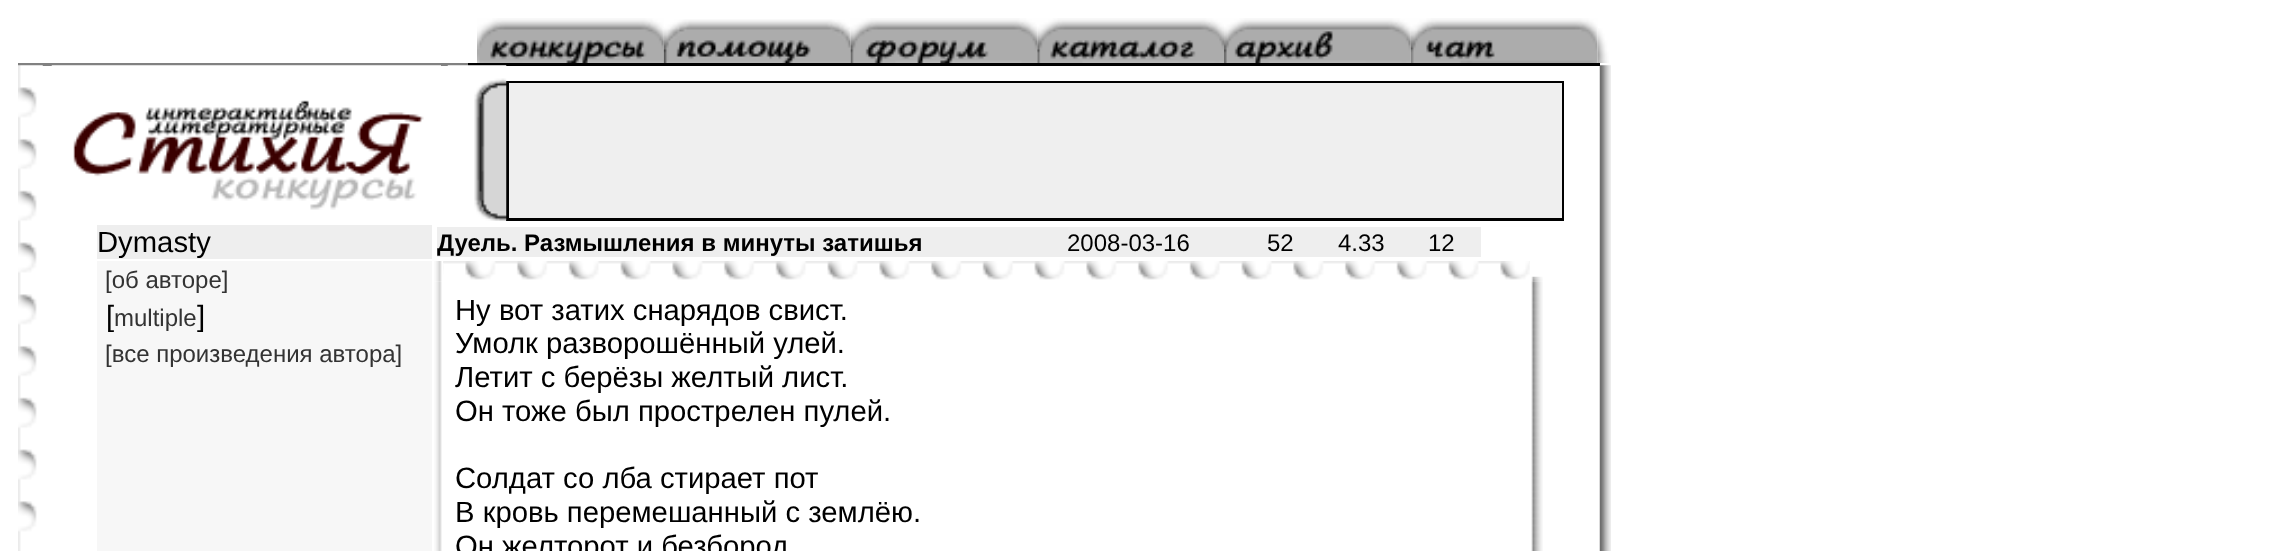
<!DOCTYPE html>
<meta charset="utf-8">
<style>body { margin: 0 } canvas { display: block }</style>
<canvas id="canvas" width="2277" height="551"></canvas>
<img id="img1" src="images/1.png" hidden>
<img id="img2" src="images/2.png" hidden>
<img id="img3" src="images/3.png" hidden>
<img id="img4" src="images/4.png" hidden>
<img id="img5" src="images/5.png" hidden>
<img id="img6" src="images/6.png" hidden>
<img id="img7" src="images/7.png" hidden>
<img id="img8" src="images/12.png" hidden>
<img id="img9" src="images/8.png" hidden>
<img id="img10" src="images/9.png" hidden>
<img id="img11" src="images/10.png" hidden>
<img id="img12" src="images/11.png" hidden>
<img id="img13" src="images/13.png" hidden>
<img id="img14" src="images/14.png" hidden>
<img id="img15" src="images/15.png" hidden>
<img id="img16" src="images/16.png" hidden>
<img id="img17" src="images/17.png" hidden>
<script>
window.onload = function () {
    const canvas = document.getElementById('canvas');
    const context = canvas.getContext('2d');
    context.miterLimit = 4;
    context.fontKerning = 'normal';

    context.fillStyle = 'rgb(255, 255, 255)';
    context.fillRect(0, 0, 2277, 551);
    context.drawImage(document.getElementById('img1'), 477, 18, 187, 45);
    context.drawImage(document.getElementById('img2'), 663, 19, 188, 44);
    context.drawImage(document.getElementById('img3'), 850, 18, 188, 45);
    context.drawImage(document.getElementById('img4'), 1037, 18, 187, 45);
    context.drawImage(document.getElementById('img5'), 1224, 18, 187, 45);
    context.drawImage(document.getElementById('img6'), 1410, 18, 188, 45);
    context.drawImage(document.getElementById('img7'), 1597, 28, 12, 35);
    context.fillStyle = 'rgb(129, 129, 129)';
    context.fillRect(18, 63, 450, 3);
    context.drawImage(document.getElementById('img8'), 1599, 65, 12, 486);
    context.fillStyle = 'rgb(0, 0, 0)';
    context.fillRect(468, 63, 1132, 3);
    context.drawImage(document.getElementById('img9'), 18, 66, 19, 485);
    context.drawImage(document.getElementById('img10'), 18, 65, 25, 1);
    context.drawImage(document.getElementById('img11'), 51, 65, 390, 145);
    context.fillRect(506, 81, 1058, 140);
    context.drawImage(document.getElementById('img12'), 447, 65, 60, 156);
    context.fillStyle = 'rgb(239, 239, 239)';
    context.fillRect(509, 83, 1053, 135);
    context.fillStyle = 'rgb(238, 238, 238)';
    context.fillRect(97, 225, 335, 34);
    context.fillRect(437, 227, 1044, 30);
    context.fillStyle = 'rgb(247, 247, 247)';
    context.fillRect(97, 261, 335, 290);
    context.drawImage(document.getElementById('img13'), 434, 261, 8, 21);
    context.drawImage(document.getElementById('img14'), 443, 261, 1087, 19);
    context.fillStyle = 'rgb(238, 238, 238)';
    context.fillRect(443, 261, 1, 2);
    context.drawImage(document.getElementById('img15'), 1531, 276, 12, 5);
    context.drawImage(document.getElementById('img16'), 434, 281, 8, 270);
    context.drawImage(document.getElementById('img17'), 1531, 281, 12, 270);
    context.font = '29.25px Liberation Sans';
    context.fillStyle = 'rgb(0, 0, 0)';
    context.fillText('Dymasty', 97, 252);
    context.font = 'bold 24px Liberation Sans';
    context.fillText('Дуель. Размышления в минуты затишья', 437, 251);
    context.font = '24px Liberation Sans';
    context.fillText('2008-03-16', 1067, 251);
    context.fillText('52', 1267, 251);
    context.fillText('4.33', 1338, 251);
    context.fillText('12', 1428, 251);
    context.fillStyle = 'rgb(51, 51, 51)';
    context.fillText('[об авторе]', 105, 288);
    context.font = '29.25px Liberation Sans';
    context.fillStyle = 'rgb(0, 0, 0)';
    context.fillText('[', 106, 326);
    context.font = '24px Liberation Sans';
    context.fillStyle = 'rgb(51, 51, 51)';
    context.fillText('multiple', 114, 326);
    context.font = '29.25px Liberation Sans';
    context.fillStyle = 'rgb(0, 0, 0)';
    context.fillText(']', 197, 326);
    context.font = '24px Liberation Sans';
    context.fillStyle = 'rgb(51, 51, 51)';
    context.fillText('[все произведения автора]', 105, 362);
    context.font = '29.25px Liberation Sans';
    context.fillStyle = 'rgb(0, 0, 0)';
    context.fillText('Ну вот затих снарядов свист.', 455, 320);
    context.fillText('Умолк разворошённый улей.', 455, 353);
    context.fillText('Летит с берёзы желтый лист.', 455, 387);
    context.fillText('Он тоже был прострелен пулей.', 455, 421);
    context.fillText('Солдат со лба стирает пот', 455, 488);
    context.fillText('В кровь перемешанный с землёю.', 455, 522);
    context.fillText('Он желторот и безбород', 455, 556);
};
</script>
